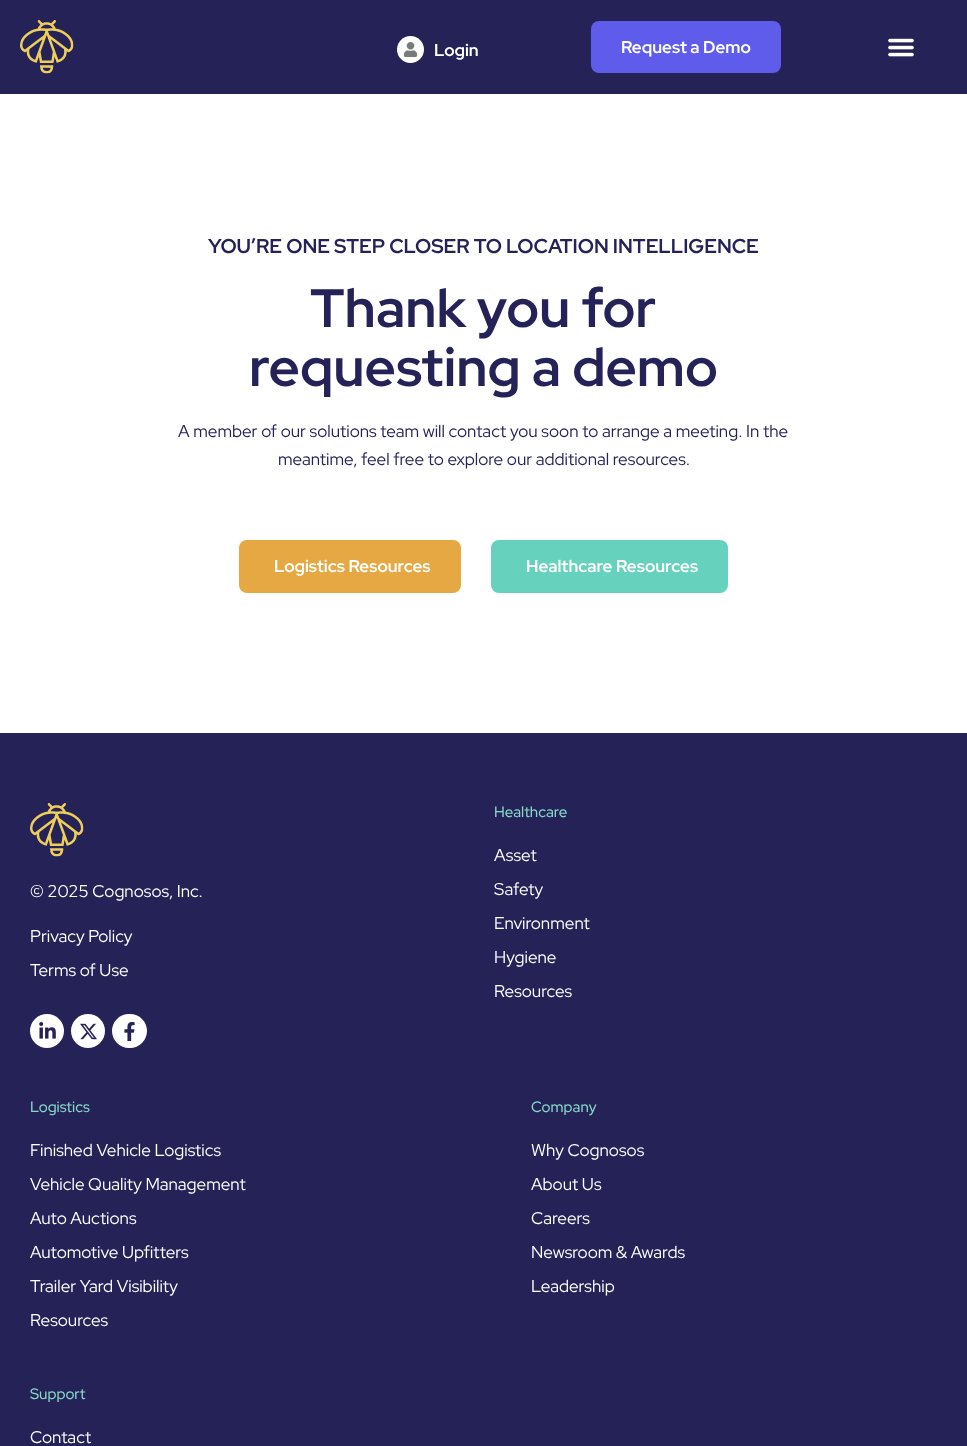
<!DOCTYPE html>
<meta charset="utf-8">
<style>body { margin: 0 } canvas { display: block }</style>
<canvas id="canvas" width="967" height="1446"></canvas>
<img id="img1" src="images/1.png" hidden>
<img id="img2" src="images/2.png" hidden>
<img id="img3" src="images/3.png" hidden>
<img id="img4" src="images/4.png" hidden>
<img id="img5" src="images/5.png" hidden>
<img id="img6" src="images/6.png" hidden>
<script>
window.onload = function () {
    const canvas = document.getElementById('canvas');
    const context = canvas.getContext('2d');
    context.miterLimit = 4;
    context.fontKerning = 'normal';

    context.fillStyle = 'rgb(255, 255, 255)';
    context.fillRect(0, 0, 967, 1446);
    context.fillStyle = 'rgb(37, 34, 87)';
    context.fillRect(0, 0, 967, 94);
    context.drawImage(document.getElementById('img1'), 20, 20, 54, 54);
    context.fillStyle = 'rgb(255, 255, 255)';
    context.beginPath();
    context.arc(410.5, 49.5, 13.5, 0, 2 * Math.PI);
    context.fill();
    context.drawImage(document.getElementById('img2'), 403, 42, 15, 16);
    context.fillStyle = 'rgb(96, 92, 235)';
    context.beginPath();
    context.roundRect(591, 21, 190, 52, 8);
    context.fill();
    context.drawImage(document.getElementById('img3'), 888, 38, 26, 19);
    context.fillStyle = 'rgb(230, 168, 66)';
    context.beginPath();
    context.roundRect(239, 540, 222, 53, 8);
    context.fill();
    context.fillStyle = 'rgb(102, 209, 188)';
    context.beginPath();
    context.roundRect(491, 540, 237, 53, 8);
    context.fill();
    context.fillStyle = 'rgb(37, 34, 87)';
    context.fillRect(0, 733, 967, 713);
    context.drawImage(document.getElementById('img1'), 30, 803, 54, 54);
    context.fillStyle = 'rgb(255, 255, 255)';
    context.beginPath();
    context.arc(47, 1031, 17, 0, 2 * Math.PI);
    context.fill();
    context.drawImage(document.getElementById('img4'), 39, 1022, 17, 17);
    context.beginPath();
    context.arc(88, 1031, 17, 0, 2 * Math.PI);
    context.fill();
    context.drawImage(document.getElementById('img5'), 80, 1023, 17, 17);
    context.beginPath();
    context.roundRect(112, 1014, 35, 34, 17);
    context.fill();
    context.drawImage(document.getElementById('img6'), 124, 1022, 11, 19);
    context.font = 'bold 17px Red Hat Display';
    context.fillText('Login', 434, 56);
    context.fillText('Request a Demo', 621, 53);
    context.font = 'bold 20px Red Hat Display';
    context.fillStyle = 'rgb(37, 34, 87)';
    context.fillText('YOU’RE ONE STEP CLOSER TO LOCATION INTELLIGENCE', 208, 253);
    context.font = 'bold 54px Red Hat Display';
    context.fillText('Thank you for', 310, 327);
    context.fillText('requesting a demo', 249, 386);
    context.font = '17px Red Hat Display';
    context.fillText('A member of our solutions team will contact you soon to arrange a meeting. In the', 178, 437);
    context.fillText('meantime, feel free to explore our additional resources.', 278, 465);
    context.font = 'bold 17px Red Hat Display';
    context.fillStyle = 'rgb(255, 255, 255)';
    context.fillText('Logistics Resources', 274, 572);
    context.fillText('Healthcare Resources', 526, 572);
    context.font = '17px Red Hat Display';
    context.fillText('© 2025 Cognosos, Inc.', 30, 897);
    context.fillText('Privacy Policy', 30, 942);
    context.fillText('Terms of Use', 30, 976);
    context.font = '500 15px Red Hat Display';
    context.fillStyle = 'rgb(135, 216, 200)';
    context.fillText('Healthcare', 494, 817);
    context.font = '17px Red Hat Display';
    context.fillStyle = 'rgb(255, 255, 255)';
    context.fillText('Asset', 494, 861);
    context.fillText('Safety', 494, 895);
    context.fillText('Environment', 494, 929);
    context.fillText('Hygiene', 494, 963);
    context.fillText('Resources', 494, 997);
    context.font = '500 15px Red Hat Display';
    context.fillStyle = 'rgb(135, 216, 200)';
    context.fillText('Logistics', 30, 1112);
    context.font = '17px Red Hat Display';
    context.fillStyle = 'rgb(255, 255, 255)';
    context.fillText('Finished Vehicle Logistics', 30, 1156);
    context.fillText('Vehicle Quality Management', 30, 1190);
    context.fillText('Auto Auctions', 30, 1224);
    context.fillText('Automotive Upfitters', 30, 1258);
    context.fillText('Trailer Yard Visibility', 30, 1292);
    context.fillText('Resources', 30, 1326);
    context.font = '500 15px Red Hat Display';
    context.fillStyle = 'rgb(135, 216, 200)';
    context.fillText('Company', 531, 1112);
    context.font = '17px Red Hat Display';
    context.fillStyle = 'rgb(255, 255, 255)';
    context.fillText('Why Cognosos', 531, 1156);
    context.fillText('About Us', 531, 1190);
    context.fillText('Careers', 531, 1224);
    context.fillText('Newsroom & Awards', 531, 1258);
    context.fillText('Leadership', 531, 1292);
    context.font = '500 15px Red Hat Display';
    context.fillStyle = 'rgb(135, 216, 200)';
    context.fillText('Support', 30, 1399);
    context.font = '17px Red Hat Display';
    context.fillStyle = 'rgb(255, 255, 255)';
    context.fillText('Contact', 30, 1443);
};
</script>
